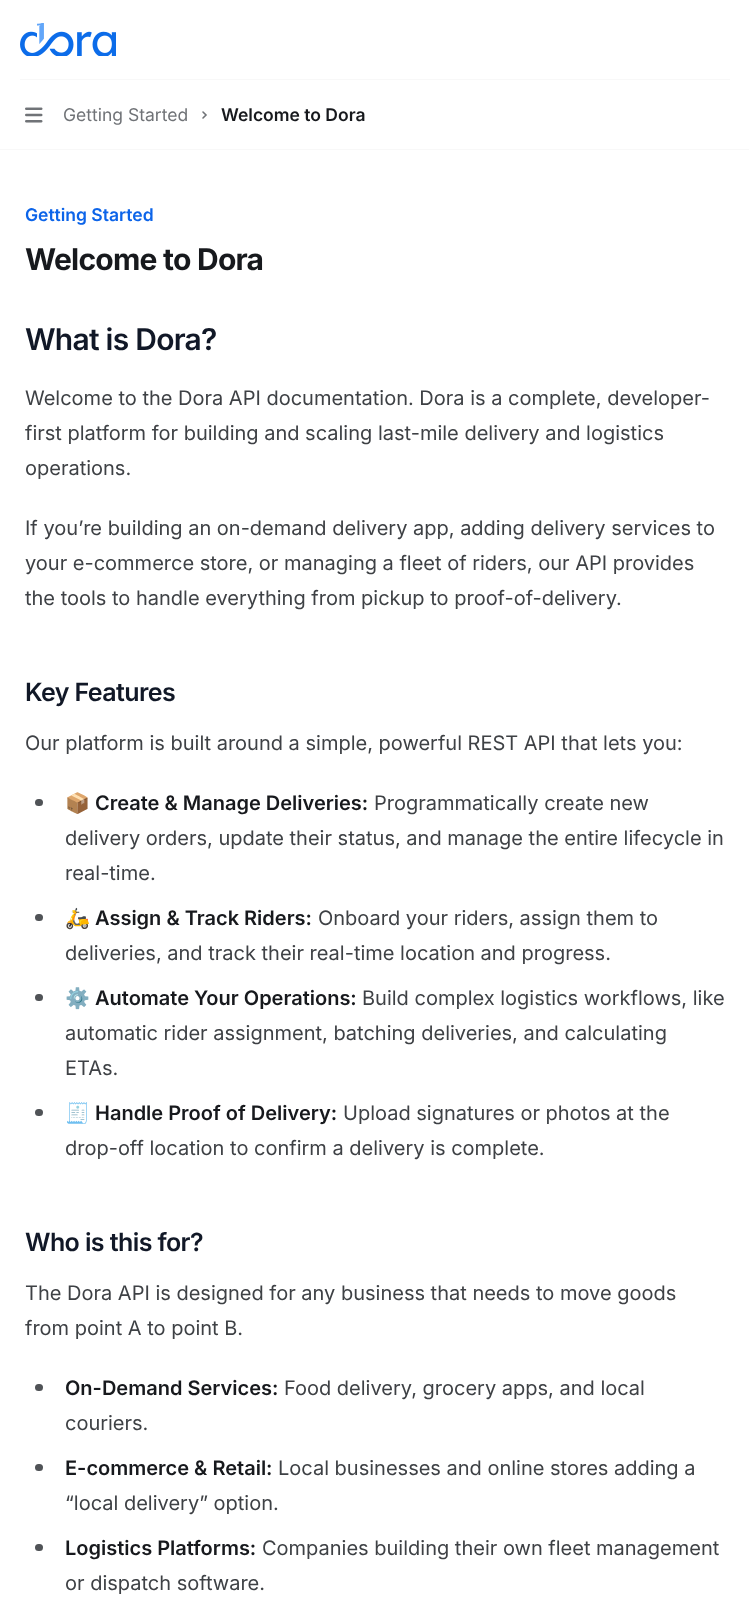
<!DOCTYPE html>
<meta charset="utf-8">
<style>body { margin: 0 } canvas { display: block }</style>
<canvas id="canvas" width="749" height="1619"></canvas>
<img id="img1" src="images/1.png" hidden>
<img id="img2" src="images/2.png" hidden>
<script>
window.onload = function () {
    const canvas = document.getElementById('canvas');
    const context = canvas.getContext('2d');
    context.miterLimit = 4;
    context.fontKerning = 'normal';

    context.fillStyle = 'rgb(255, 255, 255)';
    context.fillRect(0, 0, 749, 1619);
    context.fillStyle = 'rgb(248, 248, 248)';
    context.fillRect(20, 79, 710, 1);
    context.drawImage(document.getElementById('img1'), 20, 23, 96, 33);
    context.drawImage(document.getElementById('img2'), 25, 107, 18, 16);
    context.beginPath();
    context.moveTo(203, 112);
    context.lineTo(206, 115);
    context.lineTo(203, 118);
    context.strokeStyle = 'rgb(112, 115, 119)';
    context.lineWidth = 1.6;
    context.lineCap = 'round';
    context.stroke();
    context.fillRect(0, 149, 749, 1);
    context.fillStyle = 'rgb(80, 83, 87)';
    context.beginPath();
    context.roundRect(35, 799, 8, 7, 3.5);
    context.fill();
    context.beginPath();
    context.roundRect(35, 914, 8, 7, 3.5);
    context.fill();
    context.beginPath();
    context.roundRect(35, 994, 8, 7, 3.5);
    context.fill();
    context.beginPath();
    context.roundRect(35, 1109, 8, 7, 3.5);
    context.fill();
    context.beginPath();
    context.roundRect(35, 1384, 8, 7, 3.5);
    context.fill();
    context.beginPath();
    context.roundRect(35, 1464, 8, 7, 3.5);
    context.fill();
    context.beginPath();
    context.roundRect(35, 1544, 8, 7, 3.5);
    context.fill();
    context.font = '17.5px Inter';
    context.fillStyle = 'rgb(112, 115, 119)';
    context.fillText('Getting Started', 63, 121);
    context.font = '600 17.5px Inter';
    context.fillStyle = 'rgb(23, 25, 29)';
    context.fillText('Welcome to Dora', 221, 121);
    context.fillStyle = 'rgb(12, 100, 233)';
    context.fillText('Getting Started', 25, 221);
    context.letterSpacing = '-0.75px';
    context.font = 'bold 30px Inter';
    context.fillStyle = 'rgb(23, 25, 29)';
    context.fillText('Welcome to Dora', 25, 270);
    context.font = '600 30px Inter';
    context.fillStyle = 'rgb(17, 24, 39)';
    context.fillText('What is Dora?', 25, 350);
    context.letterSpacing = '0px';
    context.font = '20px Inter';
    context.fillStyle = 'rgb(62, 65, 69)';
    context.fillText('Welcome to the Dora API documentation. Dora is a complete, developer-', 25, 405);
    context.fillText('first platform for building and scaling last-mile delivery and logistics', 25, 440);
    context.fillText('operations.', 25, 475);
    context.fillText('If you’re building an on-demand delivery app, adding delivery services to', 25, 535);
    context.fillText('your e-commerce store, or managing a fleet of riders, our API provides', 25, 570);
    context.fillText('the tools to handle everything from pickup to proof-of-delivery.', 25, 605);
    context.letterSpacing = '-0.6px';
    context.font = '600 25px Inter';
    context.fillStyle = 'rgb(17, 24, 39)';
    context.fillText('Key Features', 25, 701);
    context.letterSpacing = '0px';
    context.font = '20px Inter';
    context.fillStyle = 'rgb(62, 65, 69)';
    context.fillText('Our platform is built around a simple, powerful REST API that lets you:', 25, 750);
    context.font = 'bold 20px Noto Color Emoji';
    context.fillStyle = 'rgb(23, 25, 29)';
    context.fillText('📦', 65, 810);
    context.font = '600 20px Inter';
    context.fillText('Create & Manage Deliveries:', 95, 810);
    context.font = '20px Inter';
    context.fillStyle = 'rgb(62, 65, 69)';
    context.fillText('Programmatically create new', 374, 810);
    context.fillText('delivery orders, update their status, and manage the entire lifecycle in', 65, 845);
    context.fillText('real-time.', 65, 880);
    context.font = 'bold 20px Noto Color Emoji';
    context.fillStyle = 'rgb(23, 25, 29)';
    context.fillText('🛵', 65, 925);
    context.font = '600 20px Inter';
    context.fillText('Assign & Track Riders:', 95, 925);
    context.font = '20px Inter';
    context.fillStyle = 'rgb(62, 65, 69)';
    context.fillText('Onboard your riders, assign them to', 318, 925);
    context.fillText('deliveries, and track their real-time location and progress.', 65, 960);
    context.font = 'bold 20px Noto Color Emoji';
    context.fillStyle = 'rgb(23, 25, 29)';
    context.fillText('⚙️', 65, 1005);
    context.font = '600 20px Inter';
    context.fillText('Automate Your Operations:', 95, 1005);
    context.font = '20px Inter';
    context.fillStyle = 'rgb(62, 65, 69)';
    context.fillText('Build complex logistics workflows, like', 362, 1005);
    context.fillText('automatic rider assignment, batching deliveries, and calculating', 65, 1040);
    context.fillText('ETAs.', 65, 1075);
    context.font = 'bold 20px Noto Color Emoji';
    context.fillStyle = 'rgb(23, 25, 29)';
    context.fillText('🧾', 65, 1120);
    context.font = '600 20px Inter';
    context.fillText('Handle Proof of Delivery:', 95, 1120);
    context.font = '20px Inter';
    context.fillStyle = 'rgb(62, 65, 69)';
    context.fillText('Upload signatures or photos at the', 343, 1120);
    context.fillText('drop-off location to confirm a delivery is complete.', 65, 1155);
    context.letterSpacing = '-0.6px';
    context.font = '600 25px Inter';
    context.fillStyle = 'rgb(17, 24, 39)';
    context.fillText('Who is this for?', 25, 1251);
    context.letterSpacing = '0px';
    context.font = '20px Inter';
    context.fillStyle = 'rgb(62, 65, 69)';
    context.fillText('The Dora API is designed for any business that needs to move goods', 25, 1300);
    context.fillText('from point A to point B.', 25, 1335);
    context.font = '600 20px Inter';
    context.fillStyle = 'rgb(23, 25, 29)';
    context.fillText('On-Demand Services:', 65, 1395);
    context.font = '20px Inter';
    context.fillStyle = 'rgb(62, 65, 69)';
    context.fillText('Food delivery, grocery apps, and local', 284, 1395);
    context.fillText('couriers.', 65, 1430);
    context.font = '600 20px Inter';
    context.fillStyle = 'rgb(23, 25, 29)';
    context.fillText('E-commerce & Retail:', 65, 1475);
    context.font = '20px Inter';
    context.fillStyle = 'rgb(62, 65, 69)';
    context.fillText('Local businesses and online stores adding a', 278, 1475);
    context.fillText('“local delivery” option.', 65, 1510);
    context.font = '600 20px Inter';
    context.fillStyle = 'rgb(23, 25, 29)';
    context.fillText('Logistics Platforms:', 65, 1555);
    context.font = '20px Inter';
    context.fillStyle = 'rgb(62, 65, 69)';
    context.fillText('Companies building their own fleet management', 262, 1555);
    context.fillText('or dispatch software.', 65, 1590);
};
</script>
